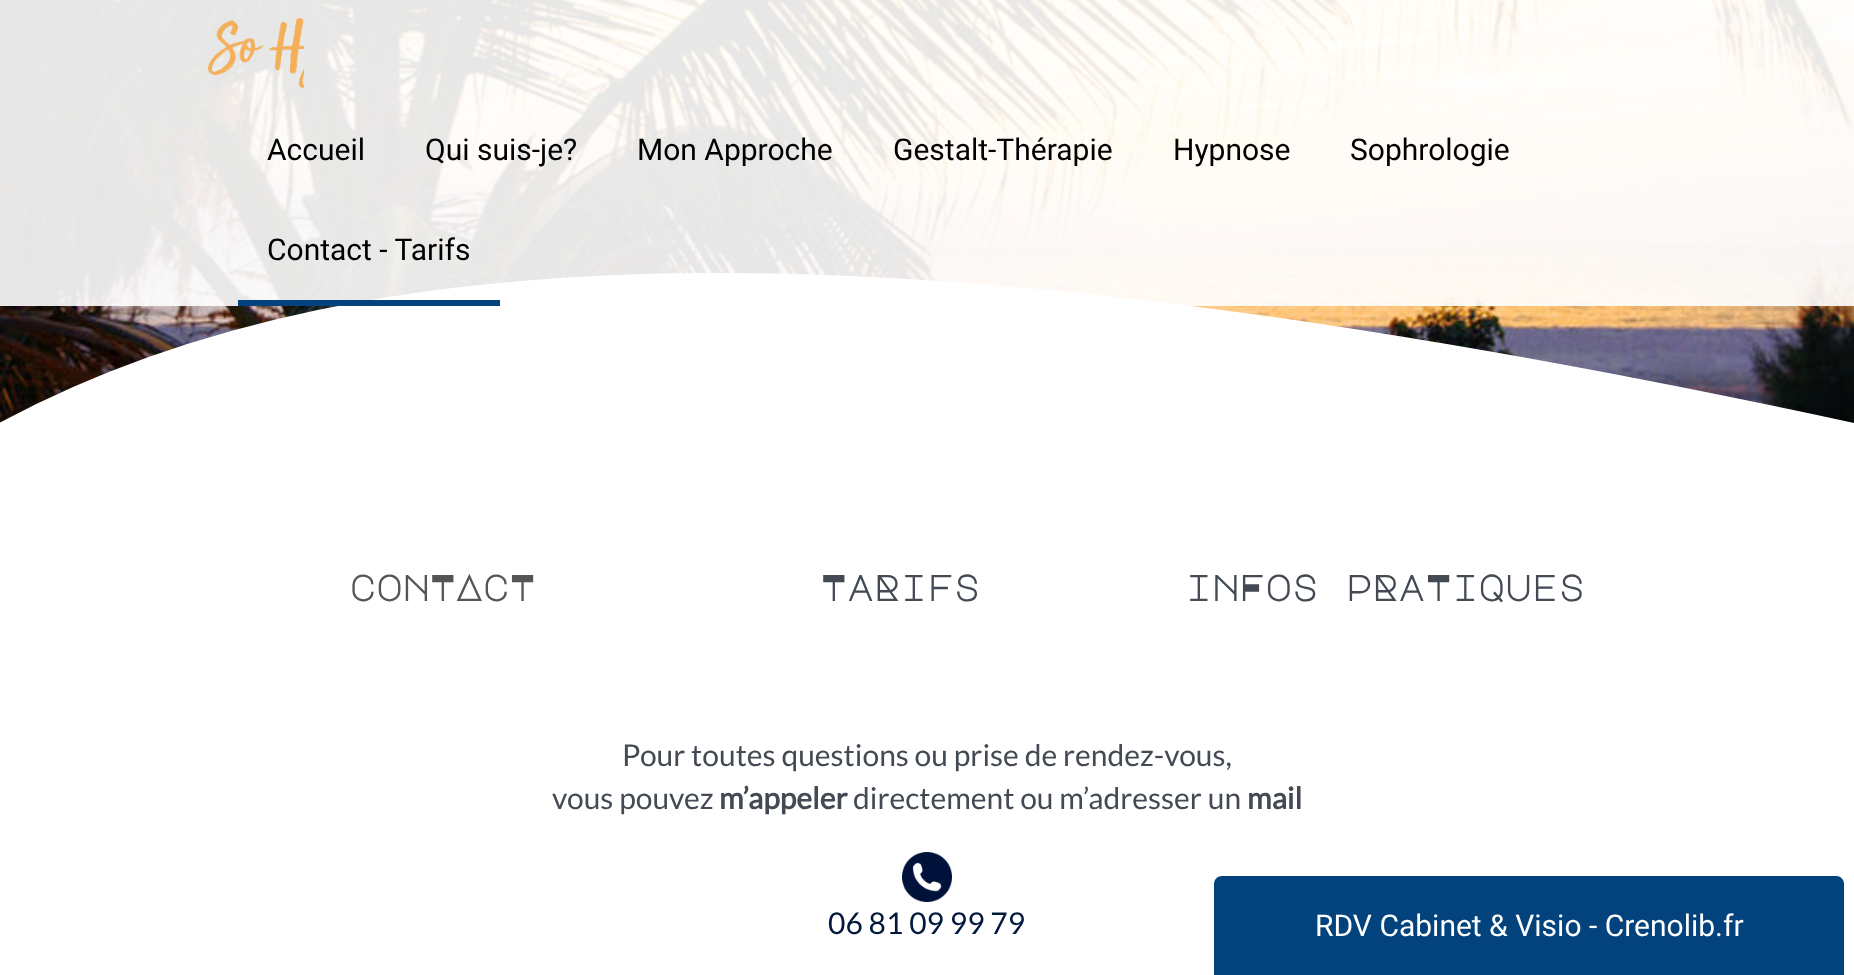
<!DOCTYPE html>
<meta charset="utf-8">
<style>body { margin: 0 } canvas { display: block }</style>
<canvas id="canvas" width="1854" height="975"></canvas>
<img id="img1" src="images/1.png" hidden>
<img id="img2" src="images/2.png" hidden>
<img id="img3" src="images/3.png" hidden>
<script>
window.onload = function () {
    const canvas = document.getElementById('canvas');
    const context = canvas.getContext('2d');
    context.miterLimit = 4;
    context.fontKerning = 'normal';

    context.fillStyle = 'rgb(255, 255, 255)';
    context.fillRect(0, 0, 1854, 975);
    context.drawImage(document.getElementById('img1'), 0, 0, 1854, 423);
    context.beginPath();
    context.moveTo(0, 426);
    context.bezierCurveTo(371, 226, 927, 226, 1854, 426);
    context.closePath();
    context.fill();
    context.save();
    context.beginPath();
    context.rect(0, 226, 1854, 200);
    context.clip();
    context.beginPath();
    context.moveTo(0, 426);
    context.bezierCurveTo(371, 226, 927, 226, 1854, 426);
    context.closePath();
    context.strokeStyle = 'rgb(255, 255, 255)';
    context.lineWidth = 6.1;
    context.stroke();
    context.restore();
    context.fillStyle = 'rgba(255, 255, 255, 0.9)';
    context.fillRect(0, 0, 1854, 306);
    context.drawImage(document.getElementById('img2'), 208, 17, 96, 72);
    context.fillStyle = 'rgb(2, 67, 125)';
    context.fillRect(238, 300, 262, 6);
    context.drawImage(document.getElementById('img3'), 902, 852, 50, 50);
    context.beginPath();
    context.moveTo(1222, 876);
    context.lineTo(1836, 876);
    context.bezierCurveTo(1840.5, 876, 1844, 879.5, 1844, 884);
    context.lineTo(1844, 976);
    context.lineTo(1214, 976);
    context.lineTo(1214, 884);
    context.bezierCurveTo(1214, 879.5, 1217.5, 876, 1222, 876);
    context.closePath();
    context.fill();
    context.font = '30px Roboto';
    context.fillStyle = 'rgb(0, 0, 0)';
    context.fillText('Accueil', 267, 160);
    context.fillText('Qui suis-je?', 425, 160);
    context.fillText('Mon Approche', 637, 160);
    context.fillText('Gestalt-Thérapie', 893, 160);
    context.fillText('Hypnose', 1173, 160);
    context.fillText('Sophrologie', 1350, 160);
    context.fillText('Contact - Tarifs', 267, 260);
    context.font = 'bold 36px Major Mono Display';
    context.fillStyle = 'rgb(85, 85, 85)';
    context.fillText('conTAcT', 349, 601);
    context.fillStyle = 'rgb(67, 74, 84)';
    context.fillText('TaRifs', 820, 601);
    context.fillText('inFos pRaTiques', 1185, 601);
    context.font = '30px Lato';
    context.fillText('Pour toutes questions ou prise de rendez-vous,', 622, 766);
    context.fillText('vous pouvez', 552, 809);
    context.font = 'bold 30px Lato';
    context.fillText('m’appeler', 719, 809);
    context.font = '30px Lato';
    context.fillText('directement ou m’adresser un', 853, 809);
    context.font = 'bold 30px Lato';
    context.fillText('mail', 1247, 809);
    context.font = '30px Lato';
    context.fillStyle = 'rgb(2, 24, 61)';
    context.fillText('06 81 09 99 79', 828, 934);
    context.font = '30px Roboto';
    context.fillStyle = 'rgb(255, 255, 255)';
    context.fillText('RDV Cabinet & Visio - Crenolib.fr', 1315, 936);
};
</script>
